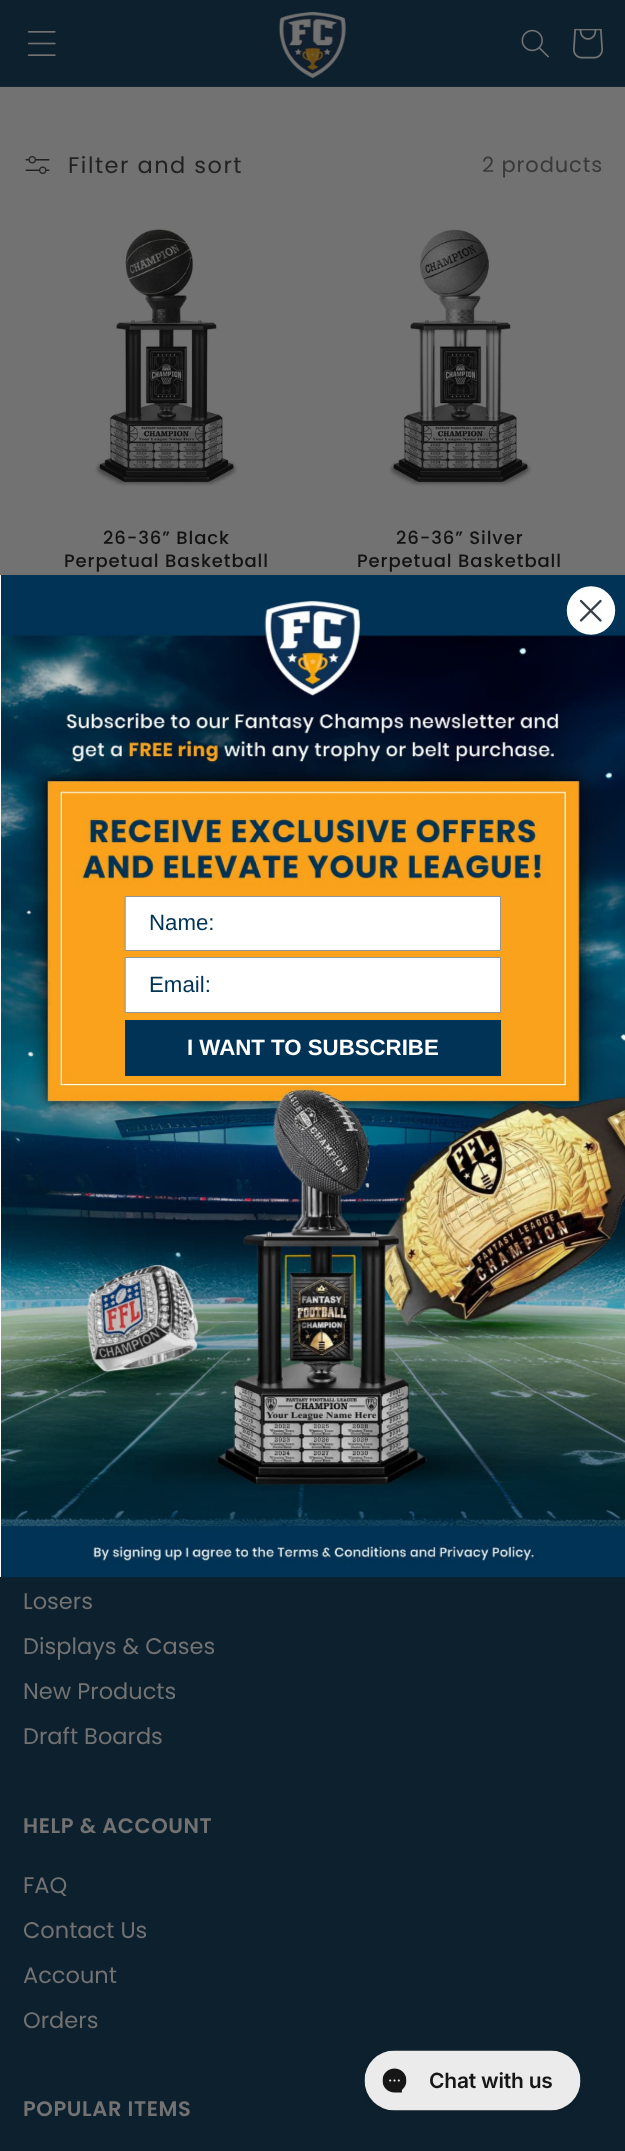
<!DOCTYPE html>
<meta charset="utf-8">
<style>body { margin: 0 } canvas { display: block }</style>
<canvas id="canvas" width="625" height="2151"></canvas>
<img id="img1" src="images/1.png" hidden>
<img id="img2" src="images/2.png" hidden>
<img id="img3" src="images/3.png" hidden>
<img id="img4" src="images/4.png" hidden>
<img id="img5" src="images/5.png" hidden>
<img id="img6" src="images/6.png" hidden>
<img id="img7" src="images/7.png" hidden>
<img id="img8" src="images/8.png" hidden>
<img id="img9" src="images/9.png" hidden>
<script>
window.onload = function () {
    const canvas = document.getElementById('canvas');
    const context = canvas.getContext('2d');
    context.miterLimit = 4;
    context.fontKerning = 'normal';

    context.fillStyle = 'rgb(114, 114, 114)';
    context.fillRect(0, 0, 625, 2151);
    context.fillStyle = 'rgb(12, 32, 46)';
    context.fillRect(0, 0, 625, 86);
    context.fillStyle = 'rgb(20, 39, 52)';
    context.fillRect(0, 86, 625, 1);
    context.drawImage(document.getElementById('img1'), 27, 31, 29, 25);
    context.drawImage(document.getElementById('img2'), 278, 12, 68, 67);
    context.drawImage(document.getElementById('img3'), 521, 29, 28, 29);
    context.drawImage(document.getElementById('img4'), 573, 29, 30, 30);
    context.drawImage(document.getElementById('img5'), 25, 156, 25, 18);
    context.drawImage(document.getElementById('img6'), 94, 228, 144, 259);
    context.drawImage(document.getElementById('img7'), 388, 228, 144, 259);
    context.fillStyle = 'rgb(12, 32, 46)';
    context.fillRect(0, 1577, 625, 574);
    context.drawImage(document.getElementById('img8'), 1, 575, 624, 1003);
    context.fillStyle = 'rgb(255, 255, 255)';
    context.beginPath();
    context.arc(591, 610.5, 23, 0, 2 * Math.PI);
    context.fill();
    context.strokeStyle = 'rgb(255, 255, 255)';
    context.lineWidth = 2.4;
    context.stroke();
    context.beginPath();
    context.moveTo(581, 601);
    context.lineTo(600.5, 620.5);
    context.moveTo(581, 620.5);
    context.lineTo(600.5, 601);
    context.closePath();
    context.strokeStyle = 'rgb(55, 63, 71)';
    context.lineCap = 'round';
    context.lineJoin = 'round';
    context.stroke();
    context.fillRect(0, 575, 1, 1002);
    context.beginPath();
    context.rect(125.5, 896.5, 375, 54);
    context.fill();
    context.strokeStyle = 'rgb(148, 149, 150)';
    context.lineWidth = 1;
    context.lineJoin = 'miter';
    context.stroke();
    context.beginPath();
    context.rect(125.5, 957.5, 375, 55);
    context.fill();
    context.stroke();
    context.fillStyle = 'rgb(0, 51, 86)';
    context.fillRect(125, 1020, 376, 56);
    context.drawImage(document.getElementById('img9'), 364, 2050, 217, 61);
    context.letterSpacing = '1.5px';
    context.font = '22.5px Poppins';
    context.fillStyle = 'rgb(34, 34, 34)';
    context.fillText('Filter and sort', 68, 173);
    context.letterSpacing = '0.9px';
    context.font = '21px Poppins';
    context.fillStyle = 'rgb(57, 57, 57)';
    context.fillText('2 products', 482, 172);
    context.font = '500 18px Poppins';
    context.fillStyle = 'rgb(19, 19, 19)';
    context.fillText('26-36” Black', 103, 544);
    context.fillText('Perpetual Basketball', 64, 567);
    context.fillText('26-36” Silver', 396, 544);
    context.fillText('Perpetual Basketball', 357, 567);
    context.letterSpacing = '0px';
    context.font = '22.25px Liberation Sans';
    context.fillStyle = 'rgb(0, 51, 86)';
    context.fillText('Name:', 149, 930);
    context.fillText('Email:', 149, 992);
    context.font = 'bold 22.25px Liberation Sans';
    context.fillStyle = 'rgb(255, 255, 255)';
    context.fillText('I WANT TO SUBSCRIBE', 187, 1055);
    context.font = '22.5px Poppins';
    context.fillStyle = 'rgb(114, 114, 114)';
    context.fillText('Losers', 23, 1609);
    context.fillText('Displays & Cases', 23, 1654);
    context.fillText('New Products', 23, 1699);
    context.fillText('Draft Boards', 23, 1744);
    context.letterSpacing = '0.6px';
    context.font = '600 21px Poppins';
    context.fillText('HELP & ACCOUNT', 23, 1833);
    context.letterSpacing = '0px';
    context.font = '22.5px Poppins';
    context.fillText('FAQ', 23, 1893);
    context.fillText('Contact Us', 23, 1938);
    context.fillText('Account', 23, 1983);
    context.fillText('Orders', 23, 2028);
    context.letterSpacing = '0.6px';
    context.font = '600 21px Poppins';
    context.fillText('POPULAR ITEMS', 23, 2116);
};
</script>
